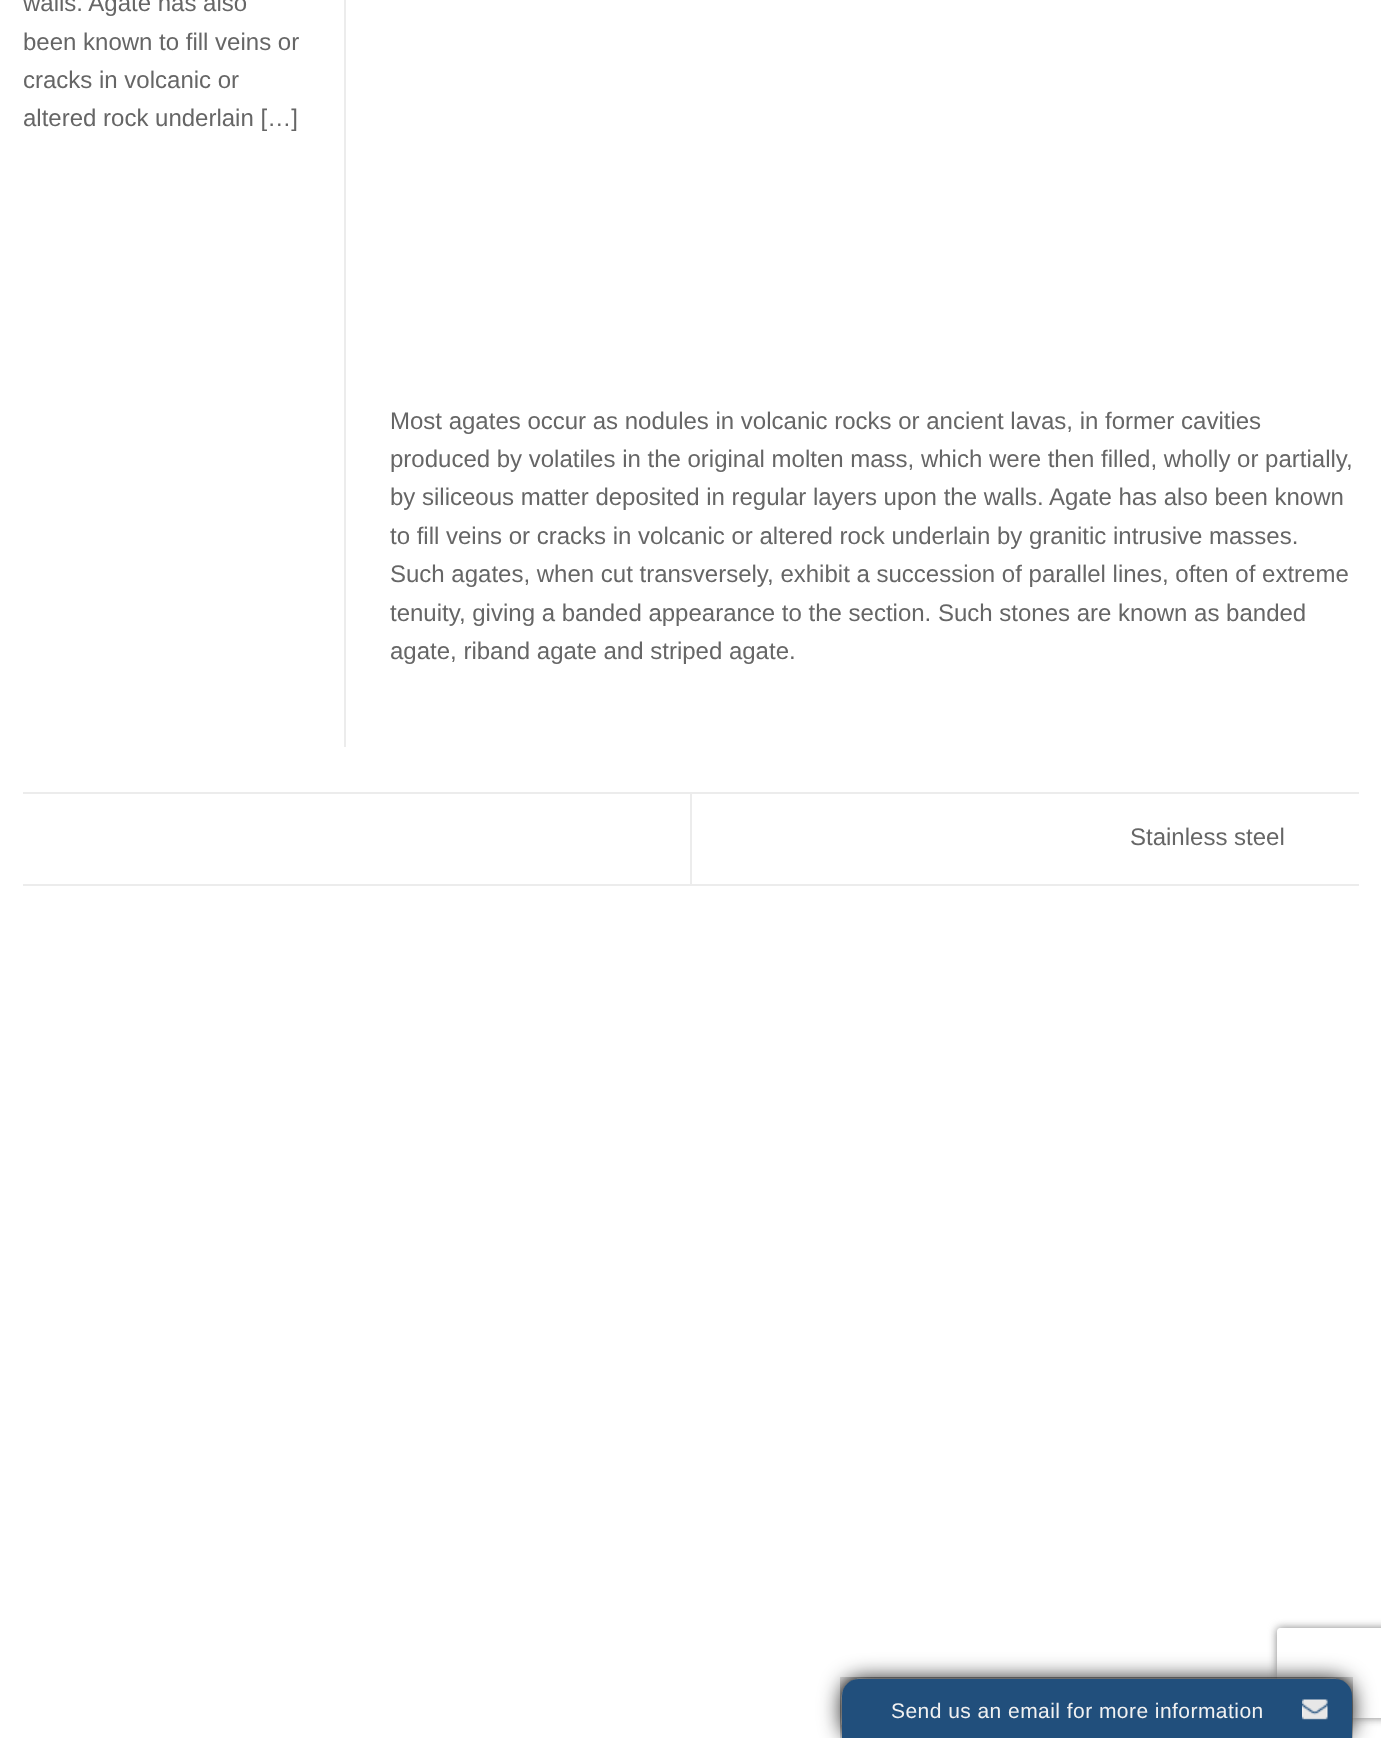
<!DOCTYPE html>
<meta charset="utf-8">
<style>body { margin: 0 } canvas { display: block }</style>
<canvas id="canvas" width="1381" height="1738"></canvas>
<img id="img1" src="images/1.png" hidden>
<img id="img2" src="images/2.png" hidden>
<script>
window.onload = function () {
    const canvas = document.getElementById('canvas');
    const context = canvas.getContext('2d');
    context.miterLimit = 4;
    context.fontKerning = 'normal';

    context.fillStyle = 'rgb(255, 255, 255)';
    context.fillRect(0, 0, 1381, 1738);
    context.fillStyle = 'rgb(236, 236, 236)';
    context.fillRect(344, 0, 2, 747);
    context.fillRect(23, 792, 1336, 2);
    context.fillRect(23, 884, 1336, 2);
    context.fillRect(690, 794, 2, 90);
    context.fillStyle = 'rgb(17, 17, 17)';
    context.filter = 'blur(11px)';
    context.beginPath();
    context.roundRect(842, 1679, 510, 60, 20);
    context.fill();
    context.filter = 'none';
    context.save();
    context.beginPath();
    context.moveTo(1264, 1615);
    context.lineTo(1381, 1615);
    context.lineTo(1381, 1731);
    context.lineTo(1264, 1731);
    context.closePath();
    context.moveTo(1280, 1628);
    context.lineTo(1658, 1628);
    context.bezierCurveTo(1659.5, 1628, 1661, 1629.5, 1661, 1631);
    context.lineTo(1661, 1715);
    context.bezierCurveTo(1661, 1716.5, 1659.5, 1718, 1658, 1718);
    context.lineTo(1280, 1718);
    context.bezierCurveTo(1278.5, 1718, 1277, 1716.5, 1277, 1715);
    context.lineTo(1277, 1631);
    context.bezierCurveTo(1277, 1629.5, 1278.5, 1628, 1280, 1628);
    context.closePath();
    context.clip('evenodd');
    context.fillStyle = 'rgb(128, 128, 128)';
    context.filter = 'blur(4px)';
    context.beginPath();
    context.roundRect(1277, 1628, 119, 90, 3);
    context.fill();
    context.filter = 'none';
    context.restore();
    context.drawImage(document.getElementById('img1'), 840, 1677, 513, 61);
    context.fillStyle = 'rgb(33, 79, 124)';
    context.beginPath();
    context.moveTo(859, 1679);
    context.lineTo(1335, 1679);
    context.bezierCurveTo(1344.5, 1679, 1352, 1686.5, 1352, 1696);
    context.lineTo(1352, 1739);
    context.lineTo(842, 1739);
    context.lineTo(842, 1696);
    context.bezierCurveTo(842, 1686.5, 849.5, 1679, 859, 1679);
    context.closePath();
    context.fill();
    context.drawImage(document.getElementById('img2'), 1302, 1699, 26, 21);
    context.font = '24px Liberation Sans';
    context.fillStyle = 'rgb(102, 102, 102)';
    context.fillText('walls. Agate has also', 23, 11);
    context.fillText('been known to fill veins or', 23, 50);
    context.fillText('cracks in volcanic or', 23, 88);
    context.fillText('altered rock underlain […]', 23, 126);
    context.fillText('Most agates occur as nodules in volcanic rocks or ancient lavas, in former cavities', 390, 429);
    context.fillText('produced by volatiles in the original molten mass, which were then filled, wholly or partially,', 390, 467);
    context.fillText('by siliceous matter deposited in regular layers upon the walls. Agate has also been known', 390, 505);
    context.fillText('to fill veins or cracks in volcanic or altered rock underlain by granitic intrusive masses.', 390, 544);
    context.fillText('Such agates, when cut transversely, exhibit a succession of parallel lines, often of extreme', 390, 582);
    context.fillText('tenuity, giving a banded appearance to the section. Such stones are known as banded', 390, 621);
    context.fillText('agate, riband agate and striped agate.', 390, 659);
    context.fillText('Stainless steel', 1130, 845);
    context.letterSpacing = '0.45px';
    context.font = '21px Liberation Sans';
    context.fillStyle = 'rgb(241, 241, 241)';
    context.fillText('Send us an email for more information', 891, 1718);
};
</script>
